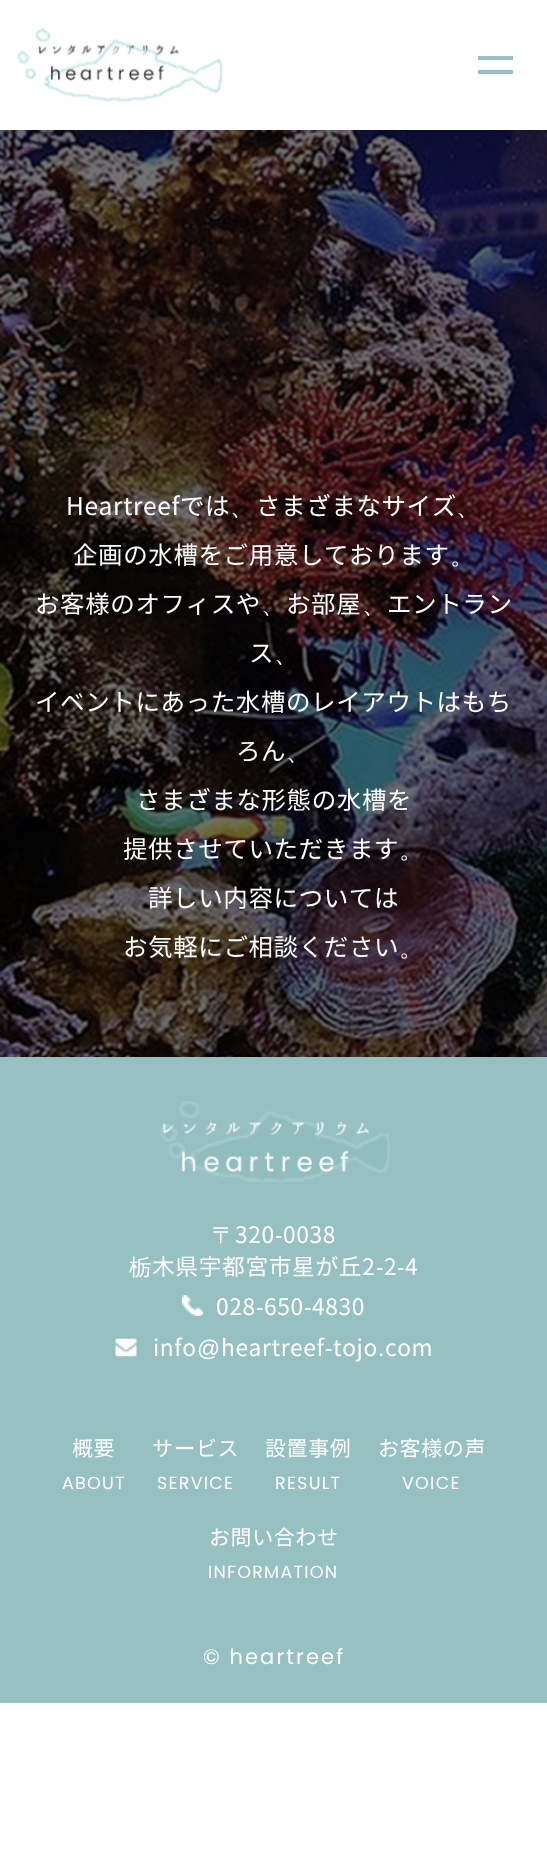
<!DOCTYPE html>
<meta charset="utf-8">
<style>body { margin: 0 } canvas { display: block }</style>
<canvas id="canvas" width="547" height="1862"></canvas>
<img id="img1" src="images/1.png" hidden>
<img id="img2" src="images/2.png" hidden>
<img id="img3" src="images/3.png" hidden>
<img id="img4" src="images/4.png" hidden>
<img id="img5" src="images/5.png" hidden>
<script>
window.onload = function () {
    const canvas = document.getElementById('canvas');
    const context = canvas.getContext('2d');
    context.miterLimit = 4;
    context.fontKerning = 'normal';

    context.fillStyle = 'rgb(255, 255, 255)';
    context.fillRect(0, 0, 547, 1862);
    context.drawImage(document.getElementById('img1'), 17, 28, 206, 74);
    context.fillStyle = 'rgb(151, 192, 194)';
    context.fillRect(478, 56, 35, 4);
    context.fillRect(478, 70, 35, 4);
    context.drawImage(document.getElementById('img2'), 0, 130, 547, 927);
    context.fillRect(0, 1057, 547, 646);
    context.drawImage(document.getElementById('img3'), 159, 1101, 231, 82);
    context.drawImage(document.getElementById('img4'), 182, 1295, 21, 21);
    context.drawImage(document.getElementById('img5'), 115, 1338, 22, 19);
    context.letterSpacing = '0.6px';
    context.font = '24.5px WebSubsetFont';
    context.fillStyle = 'rgb(255, 255, 255)';
    context.fillText('Heartreefでは', 66, 515);
    context.font = '500 24.5px WenQuanYi Zen Hei';
    context.fillText('、', 230, 515);
    context.font = '24.5px WebSubsetFont';
    context.fillText('さまざまなサイズ', 256, 515);
    context.font = '500 24.5px WenQuanYi Zen Hei';
    context.fillText('、', 456, 515);
    context.font = '24.5px WebSubsetFont';
    context.fillText('企画の水槽をご用意しております', 73, 564);
    context.font = '500 24.5px WenQuanYi Zen Hei';
    context.fillText('。', 450, 564);
    context.font = '24.5px WebSubsetFont';
    context.fillText('お客様のオフィスや', 35, 613);
    context.font = '500 24.5px WenQuanYi Zen Hei';
    context.fillText('、', 261, 613);
    context.font = '24.5px WebSubsetFont';
    context.fillText('お部屋', 286, 613);
    context.font = '500 24.5px WenQuanYi Zen Hei';
    context.fillText('、', 362, 613);
    context.font = '24.5px WebSubsetFont';
    context.fillText('エントラン', 387, 613);
    context.fillText('ス', 249, 662);
    context.font = '500 24.5px WenQuanYi Zen Hei';
    context.fillText('、', 274, 662);
    context.font = '24.5px WebSubsetFont';
    context.fillText('イベントにあった水槽のレイアウトはもち', 35, 711);
    context.fillText('ろん', 236, 760);
    context.font = '500 24.5px WenQuanYi Zen Hei';
    context.fillText('、', 286, 760);
    context.font = '24.5px WebSubsetFont';
    context.fillText('さまざまな形態の水槽を', 136, 809);
    context.fillText('提供させていただきます', 123, 858);
    context.font = '500 24.5px WenQuanYi Zen Hei';
    context.fillText('。', 399, 858);
    context.font = '24.5px WebSubsetFont';
    context.fillText('詳しい内容については', 148, 907);
    context.fillText('お気軽にご相談ください', 123, 956);
    context.font = '500 24.5px WenQuanYi Zen Hei';
    context.fillText('。', 399, 956);
    context.font = '500 22.75px WenQuanYi Zen Hei';
    context.fillText('〒', 212, 1243);
    context.font = '22.75px WebSubsetFont';
    context.fillText('320', 235, 1243);
    context.font = '22.75px Liberation Sans';
    context.fillText('-', 275, 1243);
    context.font = '22.75px WebSubsetFont';
    context.fillText('0038', 283, 1243);
    context.font = '500 22.75px WenQuanYi Zen Hei';
    context.fillText('栃', 129, 1275);
    context.font = '22.75px WebSubsetFont';
    context.fillText('木県宇都宮市星が丘2', 152, 1275);
    context.font = '22.75px Liberation Sans';
    context.fillText('-', 376, 1275);
    context.font = '22.75px WebSubsetFont';
    context.fillText('2', 384, 1275);
    context.font = '22.75px Liberation Sans';
    context.fillText('-', 397, 1275);
    context.font = '22.75px WebSubsetFont';
    context.fillText('4', 405, 1275);
    context.fillText('028', 216, 1315);
    context.font = '22.75px Liberation Sans';
    context.fillText('-', 256, 1315);
    context.font = '22.75px WebSubsetFont';
    context.fillText('650', 264, 1315);
    context.font = '22.75px Liberation Sans';
    context.fillText('-', 304, 1315);
    context.font = '22.75px WebSubsetFont';
    context.fillText('4830', 312, 1315);
    context.fillText('info', 153, 1356);
    context.font = '22.75px Liberation Sans';
    context.fillText('@', 197, 1356);
    context.font = '22.75px WebSubsetFont';
    context.fillText('heartreef', 221, 1356);
    context.font = '22.75px Liberation Sans';
    context.fillText('-', 325, 1356);
    context.font = '22.75px WebSubsetFont';
    context.fillText('tojo', 333, 1356);
    context.fillText('com', 385, 1356);
    context.font = '22.75px Liberation Sans';
    context.fillText('.', 378, 1356);
    context.font = '21px WebSubsetFont';
    context.fillText('概要', 72, 1456);
    context.letterSpacing = '1.25px';
    context.font = '17.5px Poppins';
    context.fillText('ABOUT', 62, 1489);
    context.letterSpacing = '0.6px';
    context.font = '21px WebSubsetFont';
    context.fillText('サ', 152, 1456);
    context.font = '500 21px WenQuanYi Zen Hei';
    context.fillText('ー', 174, 1456);
    context.font = '21px WebSubsetFont';
    context.fillText('ビス', 196, 1456);
    context.letterSpacing = '1.25px';
    context.font = '17.5px Poppins';
    context.fillText('SERVICE', 157, 1489);
    context.letterSpacing = '0.6px';
    context.font = '21px WebSubsetFont';
    context.fillText('設置事例', 265, 1456);
    context.letterSpacing = '1.25px';
    context.font = '17.5px Poppins';
    context.fillText('RESULT', 275, 1489);
    context.letterSpacing = '0.6px';
    context.font = '21px WebSubsetFont';
    context.fillText('お客様の声', 378, 1456);
    context.letterSpacing = '1.25px';
    context.font = '17.5px Poppins';
    context.fillText('VOICE', 402, 1489);
    context.letterSpacing = '0.6px';
    context.font = '21px WebSubsetFont';
    context.fillText('お問い合わせ', 209, 1545);
    context.letterSpacing = '1.25px';
    context.font = '17.5px Poppins';
    context.fillText('INFORMATION', 208, 1578);
    context.letterSpacing = '2.1px';
    context.font = '21px Poppins';
    context.fillText('© heartreef', 203, 1664);
};
</script>
